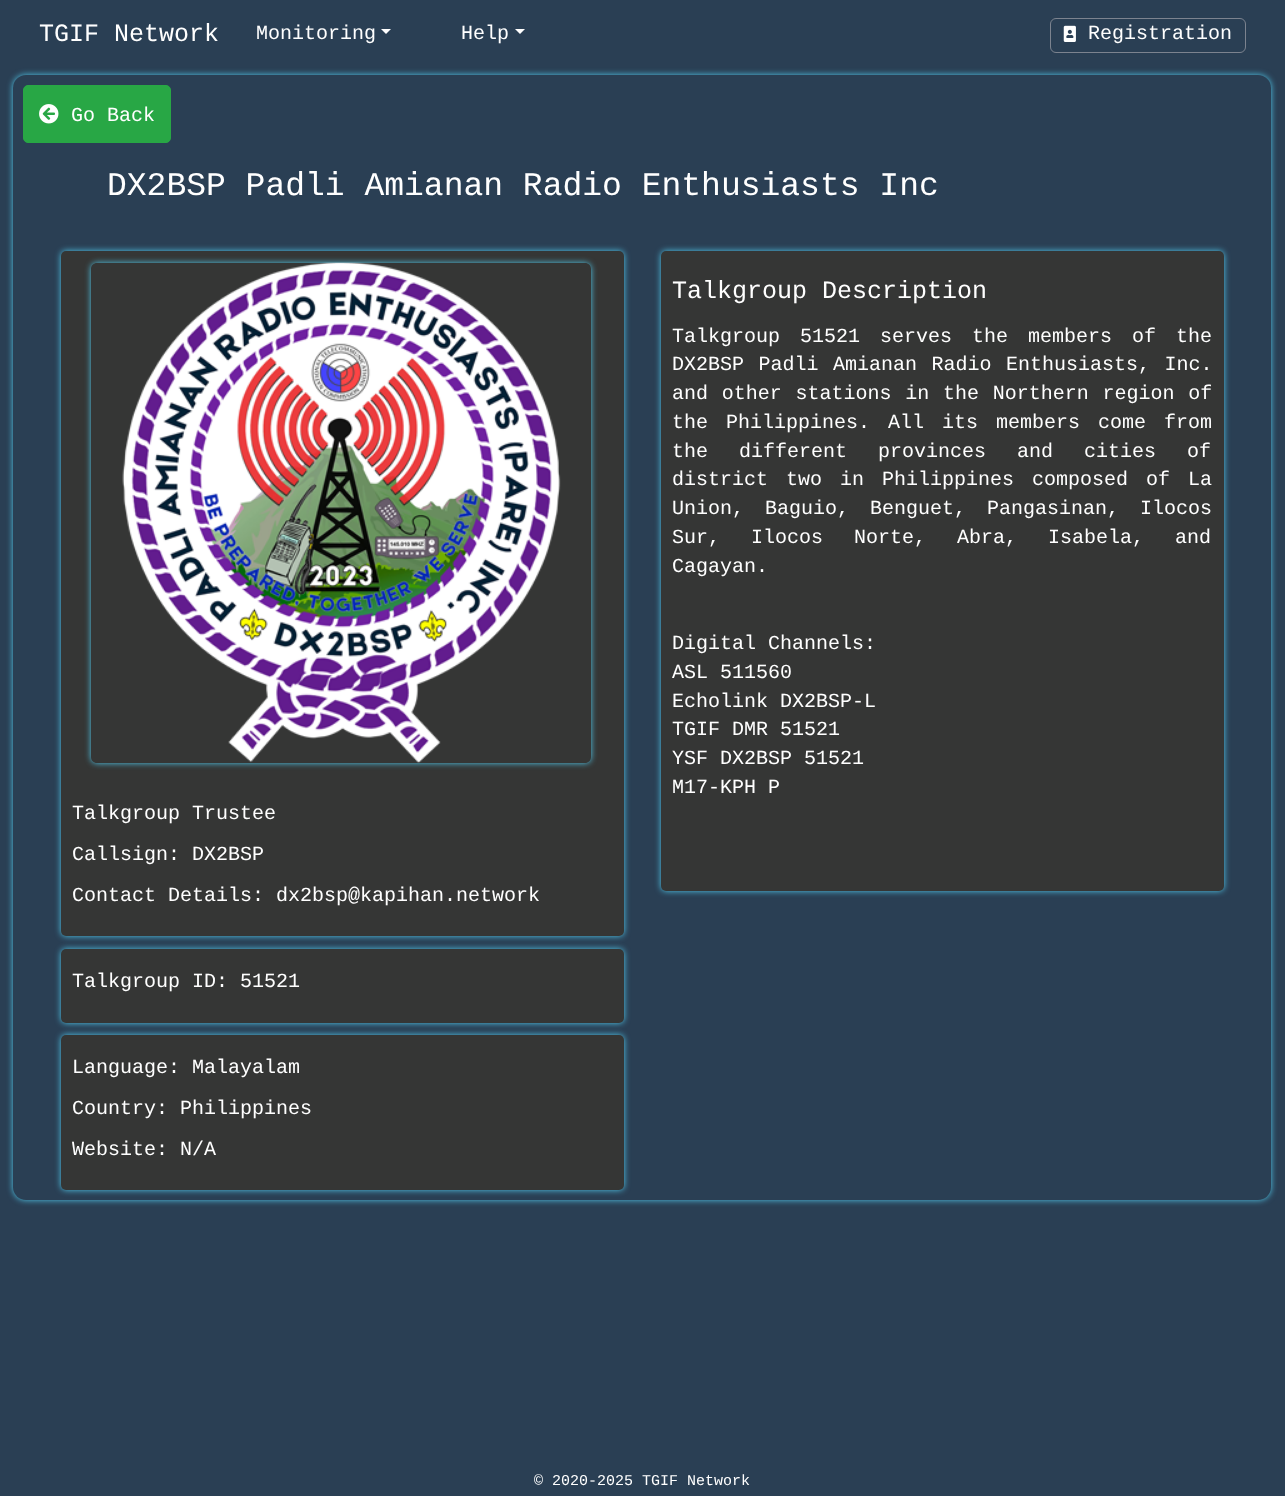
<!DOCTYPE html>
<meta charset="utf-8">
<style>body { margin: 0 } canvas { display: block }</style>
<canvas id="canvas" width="1285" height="1496"></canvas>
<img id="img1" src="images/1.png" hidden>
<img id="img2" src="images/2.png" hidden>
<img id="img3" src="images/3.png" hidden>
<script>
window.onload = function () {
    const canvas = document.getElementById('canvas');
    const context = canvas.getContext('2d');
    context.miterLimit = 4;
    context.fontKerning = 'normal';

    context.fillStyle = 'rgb(42, 63, 84)';
    context.fillRect(0, 0, 1285, 1496);
    context.fillStyle = 'rgb(255, 255, 255)';
    context.beginPath();
    context.moveTo(381, 29);
    context.lineTo(391, 29);
    context.lineTo(386, 34);
    context.closePath();
    context.fill();
    context.beginPath();
    context.moveTo(515, 29);
    context.lineTo(525, 29);
    context.lineTo(520, 34);
    context.closePath();
    context.fill();
    context.beginPath();
    context.roundRect(1050.5, 18.5, 195, 34, 5.5);
    context.strokeStyle = 'rgb(124, 131, 143)';
    context.stroke();
    context.drawImage(document.getElementById('img1'), 1063, 25, 13, 17);
    context.fillStyle = 'rgb(81, 203, 238)';
    context.filter = 'blur(3px)';
    context.beginPath();
    context.roundRect(13, 75, 1258, 1125, 13);
    context.fill();
    context.filter = 'none';
    context.fillStyle = 'rgb(42, 63, 84)';
    context.beginPath();
    context.roundRect(13, 75, 1258, 1125, 13);
    context.fill();
    context.fillStyle = 'rgb(40, 167, 69)';
    context.beginPath();
    context.roundRect(23.5, 85.5, 147, 57, 4.5);
    context.fill();
    context.strokeStyle = 'rgb(40, 167, 69)';
    context.stroke();
    context.drawImage(document.getElementById('img2'), 39, 104, 20, 20);
    context.fillStyle = 'rgb(81, 203, 238)';
    context.filter = 'blur(3px)';
    context.beginPath();
    context.roundRect(661, 251, 563, 640, 5);
    context.fill();
    context.filter = 'none';
    context.fillStyle = 'rgb(53, 54, 53)';
    context.beginPath();
    context.roundRect(661, 251, 563, 640, 5);
    context.fill();
    context.fillStyle = 'rgb(81, 203, 238)';
    context.filter = 'blur(3px)';
    context.beginPath();
    context.roundRect(61, 251, 563, 685, 5);
    context.fill();
    context.filter = 'none';
    context.fillStyle = 'rgb(53, 54, 53)';
    context.beginPath();
    context.roundRect(61, 251, 563, 685, 5);
    context.fill();
    context.save();
    context.beginPath();
    context.moveTo(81, 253);
    context.lineTo(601, 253);
    context.lineTo(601, 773);
    context.lineTo(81, 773);
    context.closePath();
    context.moveTo(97, 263);
    context.lineTo(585, 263);
    context.bezierCurveTo(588.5, 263, 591, 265.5, 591, 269);
    context.lineTo(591, 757);
    context.bezierCurveTo(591, 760.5, 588.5, 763, 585, 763);
    context.lineTo(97, 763);
    context.bezierCurveTo(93.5, 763, 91, 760.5, 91, 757);
    context.lineTo(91, 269);
    context.bezierCurveTo(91, 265.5, 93.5, 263, 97, 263);
    context.closePath();
    context.clip('evenodd');
    context.fillStyle = 'rgb(81, 203, 238)';
    context.filter = 'blur(3px)';
    context.beginPath();
    context.roundRect(91, 263, 500, 500, 6);
    context.fill();
    context.filter = 'none';
    context.restore();
    context.drawImage(document.getElementById('img3'), 122, 262, 439, 501);
    context.fillStyle = 'rgb(81, 203, 238)';
    context.filter = 'blur(3px)';
    context.beginPath();
    context.roundRect(61, 949, 563, 74, 5);
    context.fill();
    context.filter = 'none';
    context.fillStyle = 'rgb(53, 54, 53)';
    context.beginPath();
    context.roundRect(61, 949, 563, 74, 5);
    context.fill();
    context.fillStyle = 'rgb(81, 203, 238)';
    context.filter = 'blur(3px)';
    context.beginPath();
    context.roundRect(61, 1035, 563, 155, 5);
    context.fill();
    context.filter = 'none';
    context.fillStyle = 'rgb(53, 54, 53)';
    context.beginPath();
    context.roundRect(61, 1035, 563, 155, 5);
    context.fill();
    context.font = '25px Liberation Mono';
    context.fillStyle = 'rgb(255, 255, 255)';
    context.fillText('TGIF Network', 39, 41);
    context.font = '20px Liberation Mono';
    context.fillText('Monitoring', 256, 39);
    context.fillText('Help', 461, 39);
    context.fillText('Registration', 1088, 39);
    context.fillText('Go Back', 71, 121);
    context.font = '33px Liberation Mono';
    context.fillText('DX2BSP Padli Amianan Radio Enthusiasts Inc', 107, 195);
    context.font = '25px Liberation Mono';
    context.fillText('Talkgroup Description', 672, 298);
    context.wordSpacing = '8px';
    context.font = '20px Liberation Mono';
    context.fillText('Talkgroup 51521 serves the members of the', 672, 342);
    context.wordSpacing = '2.5px';
    context.fillText('DX2BSP Padli Amianan Radio Enthusiasts, Inc.', 672, 370);
    context.wordSpacing = '1.75px';
    context.fillText('and other stations in the Northern region of', 672, 399);
    context.wordSpacing = '6px';
    context.fillText('the Philippines. All its members come from', 672, 428);
    context.wordSpacing = '19px';
    context.fillText('the different provinces and cities of', 672, 457);
    context.wordSpacing = '6px';
    context.fillText('district two in Philippines composed of La', 672, 485);
    context.wordSpacing = '9px';
    context.fillText('Union, Baguio, Benguet, Pangasinan, Ilocos', 672, 514);
    context.wordSpacing = '19px';
    context.fillText('Sur, Ilocos Norte, Abra, Isabela, and', 672, 543);
    context.wordSpacing = '0px';
    context.fillText('Cagayan.', 672, 572);
    context.fillText('Digital Channels:', 672, 649);
    context.fillText('ASL 511560', 672, 678);
    context.fillText('Echolink DX2BSP-L', 672, 707);
    context.fillText('TGIF DMR 51521', 672, 735);
    context.fillText('YSF DX2BSP 51521', 672, 764);
    context.fillText('M17-KPH P', 672, 793);
    context.fillText('Talkgroup Trustee', 72, 819);
    context.fillText('Callsign: DX2BSP', 72, 860);
    context.fillText('Contact Details: dx2bsp@kapihan.network', 72, 901);
    context.fillText('Talkgroup ID: 51521', 72, 987);
    context.fillText('Language: Malayalam', 72, 1073);
    context.fillText('Country: Philippines', 72, 1114);
    context.fillText('Website: N/A', 72, 1155);
    context.font = '15px Liberation Mono';
    context.fillText('© 2020-2025 TGIF Network', 534, 1485);
};
</script>
